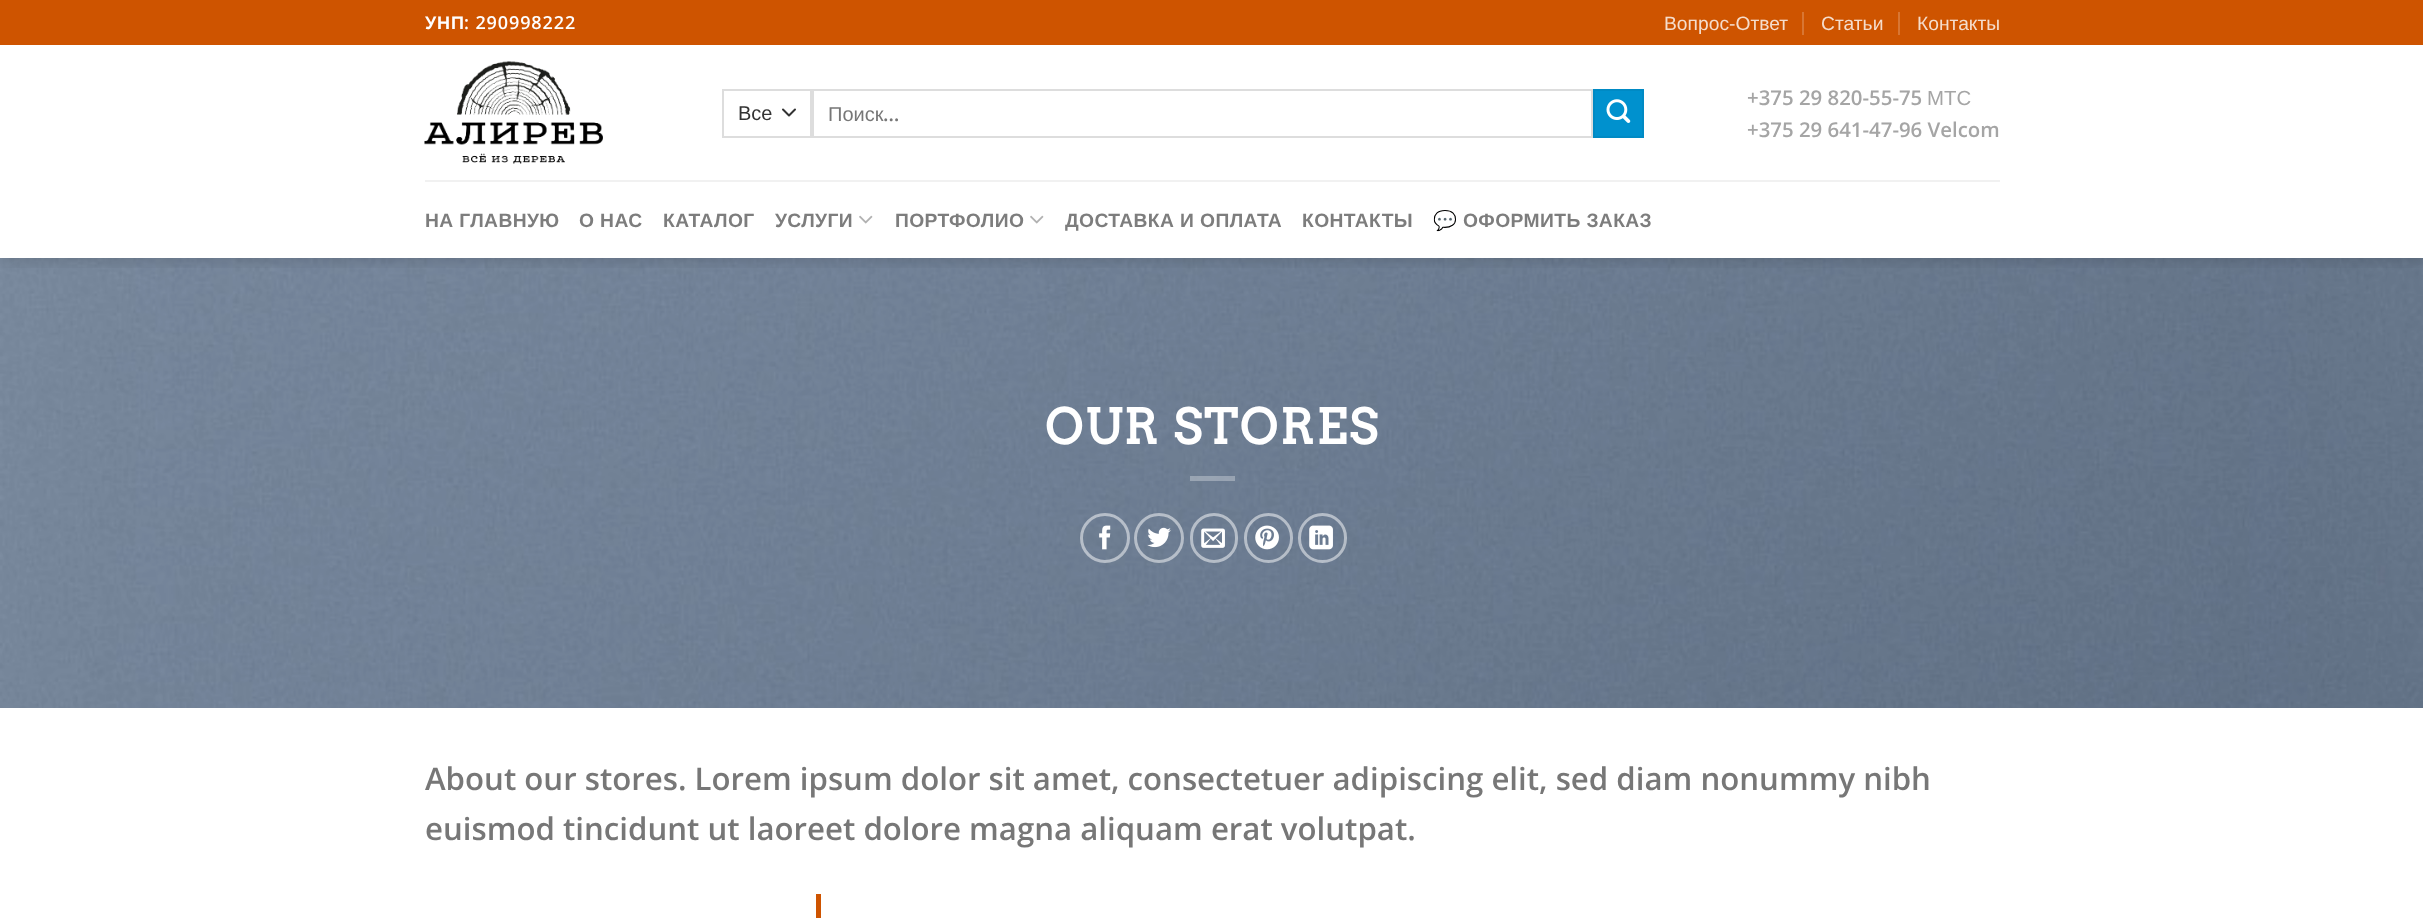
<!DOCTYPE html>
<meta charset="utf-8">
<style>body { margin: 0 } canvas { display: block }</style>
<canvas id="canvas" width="2423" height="918"></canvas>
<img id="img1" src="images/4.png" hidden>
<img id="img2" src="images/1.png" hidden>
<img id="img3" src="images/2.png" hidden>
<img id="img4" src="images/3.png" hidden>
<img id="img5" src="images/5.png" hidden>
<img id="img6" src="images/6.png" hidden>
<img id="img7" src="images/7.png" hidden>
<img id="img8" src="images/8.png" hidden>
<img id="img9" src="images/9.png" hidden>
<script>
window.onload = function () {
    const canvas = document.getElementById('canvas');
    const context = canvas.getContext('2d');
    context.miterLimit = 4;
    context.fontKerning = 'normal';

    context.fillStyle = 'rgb(255, 255, 255)';
    context.fillRect(0, 0, 2423, 918);
    context.drawImage(document.getElementById('img1'), 0, 258, 2423, 450);
    context.save();
    context.beginPath();
    context.rect(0, 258, 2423, 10);
    context.clip();
    context.fillStyle = 'rgba(0, 0, 0, 0.15)';
    context.filter = 'blur(7.5px)';
    context.beginPath();
    context.rect(2, 2, 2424, 258);
    context.fill();
    context.filter = 'none';
    context.restore();
    context.fillStyle = 'rgb(206, 84, 0)';
    context.fillRect(0, 0, 2423, 45);
    context.fillStyle = 'rgb(216, 118, 51)';
    context.fillRect(1802, 12, 2, 23);
    context.fillRect(1898, 12, 2, 23);
    context.drawImage(document.getElementById('img2'), 424, 61, 179, 103);
    context.beginPath();
    context.moveTo(783, 109.5);
    context.lineTo(789, 115.5);
    context.lineTo(795, 109.5);
    context.strokeStyle = 'rgb(51, 51, 51)';
    context.lineWidth = 2;
    context.lineCap = 'round';
    context.lineJoin = 'round';
    context.stroke();
    context.strokeStyle = 'rgb(221, 221, 221)';
    context.lineJoin = 'miter';
    context.strokeRect(723, 90, 88, 47);
    context.strokeRect(813, 90, 779, 47);
    context.fillStyle = 'rgb(0, 145, 206)';
    context.beginPath();
    context.rect(1594, 90, 49, 47);
    context.fill();
    context.strokeStyle = 'rgb(0, 138, 196)';
    context.stroke();
    context.drawImage(document.getElementById('img3'), 1606, 99, 25, 24);
    context.fillStyle = 'rgb(241, 241, 241)';
    context.fillRect(425, 180, 1575, 2);
    context.drawImage(document.getElementById('img4'), 859, 215, 14, 9);
    context.drawImage(document.getElementById('img4'), 1030, 215, 14, 9);
    context.fillStyle = 'rgba(255, 255, 255, 0.3)';
    context.fillRect(1190, 476, 45, 5);
    context.beginPath();
    context.arc(1105, 538, 23.5, 0, 2 * Math.PI);
    context.strokeStyle = 'rgba(255, 255, 255, 0.5)';
    context.lineWidth = 3;
    context.stroke();
    context.drawImage(document.getElementById('img5'), 1099, 525, 12, 25);
    context.beginPath();
    context.arc(1159, 538, 23.5, 0, 2 * Math.PI);
    context.stroke();
    context.drawImage(document.getElementById('img6'), 1147, 527, 24, 21);
    context.beginPath();
    context.roundRect(1191.5, 514.5, 45, 47, 22.5);
    context.stroke();
    context.drawImage(document.getElementById('img7'), 1201, 528, 24, 20);
    context.beginPath();
    context.roundRect(1245.5, 514.5, 46, 47, 23);
    context.stroke();
    context.drawImage(document.getElementById('img8'), 1255, 525, 24, 25);
    context.beginPath();
    context.roundRect(1299.5, 514.5, 46, 47, 23);
    context.stroke();
    context.drawImage(document.getElementById('img9'), 1309, 525, 24, 25);
    context.fillStyle = 'rgb(206, 84, 0)';
    context.fillRect(816, 894, 5, 24);
    context.letterSpacing = '0.9px';
    context.font = 'bold 18px Liberation Sans';
    context.fillStyle = 'rgb(255, 255, 255)';
    context.fillText('УНП', 425, 29);
    context.font = '600 18px Open Sans';
    context.fillText(': 290998222', 464, 29);
    context.letterSpacing = '0px';
    context.font = '19.25px Liberation Sans';
    context.fillStyle = 'rgb(245, 221, 204)';
    context.fillText('Вопрос-Ответ', 1664, 30);
    context.fillText('Статьи', 1821, 30);
    context.fillText('Контакты', 1917, 30);
    context.font = '20px Liberation Sans';
    context.fillStyle = 'rgb(51, 51, 51)';
    context.fillText('Все', 738, 120);
    context.fillStyle = 'rgb(119, 119, 119)';
    context.fillText('Поиск', 828, 121);
    context.font = '600 20px Open Sans';
    context.fillText('…', 883, 121);
    context.font = '600 20.4px Open Sans';
    context.fillStyle = 'rgb(165, 165, 165)';
    context.fillText('+375 29 820-55-75', 1747, 105);
    context.font = '20.4px Liberation Sans';
    context.fillText('МТС', 1927, 105);
    context.font = '600 20.4px Open Sans';
    context.fillText('+375 29 641-47-96 Velcom', 1747, 137);
    context.letterSpacing = '0.4px';
    context.font = 'bold 19.25px Liberation Sans';
    context.fillStyle = 'rgb(125, 125, 125)';
    context.fillText('НА ГЛАВНУЮ', 425, 227);
    context.fillText('О НАС', 579, 227);
    context.fillText('КАТАЛОГ', 663, 227);
    context.fillText('УСЛУГИ', 775, 227);
    context.fillText('ПОРТФОЛИО', 895, 227);
    context.fillText('ДОСТАВКА И ОПЛАТА', 1065, 227);
    context.fillText('КОНТАКТЫ', 1302, 227);
    context.font = 'bold 19.25px Noto Color Emoji';
    context.fillText('💬', 1433, 227);
    context.font = 'bold 19.25px Liberation Sans';
    context.fillText('ОФОРМИТЬ ЗАКАЗ', 1463, 227);
    context.letterSpacing = '2.4px';
    context.font = 'bold 48px Arvo';
    context.fillStyle = 'rgb(255, 255, 255)';
    context.fillText('OUR STORES', 1045, 444);
    context.letterSpacing = '0px';
    context.font = '600 31.2px Open Sans';
    context.fillStyle = 'rgb(119, 119, 119)';
    context.fillText('About our stores. Lorem ipsum dolor sit amet, consectetuer adipiscing elit, sed diam nonummy nibh', 425, 790);
    context.fillText('euismod tincidunt ut laoreet dolore magna aliquam erat volutpat.', 425, 840);
};
</script>
